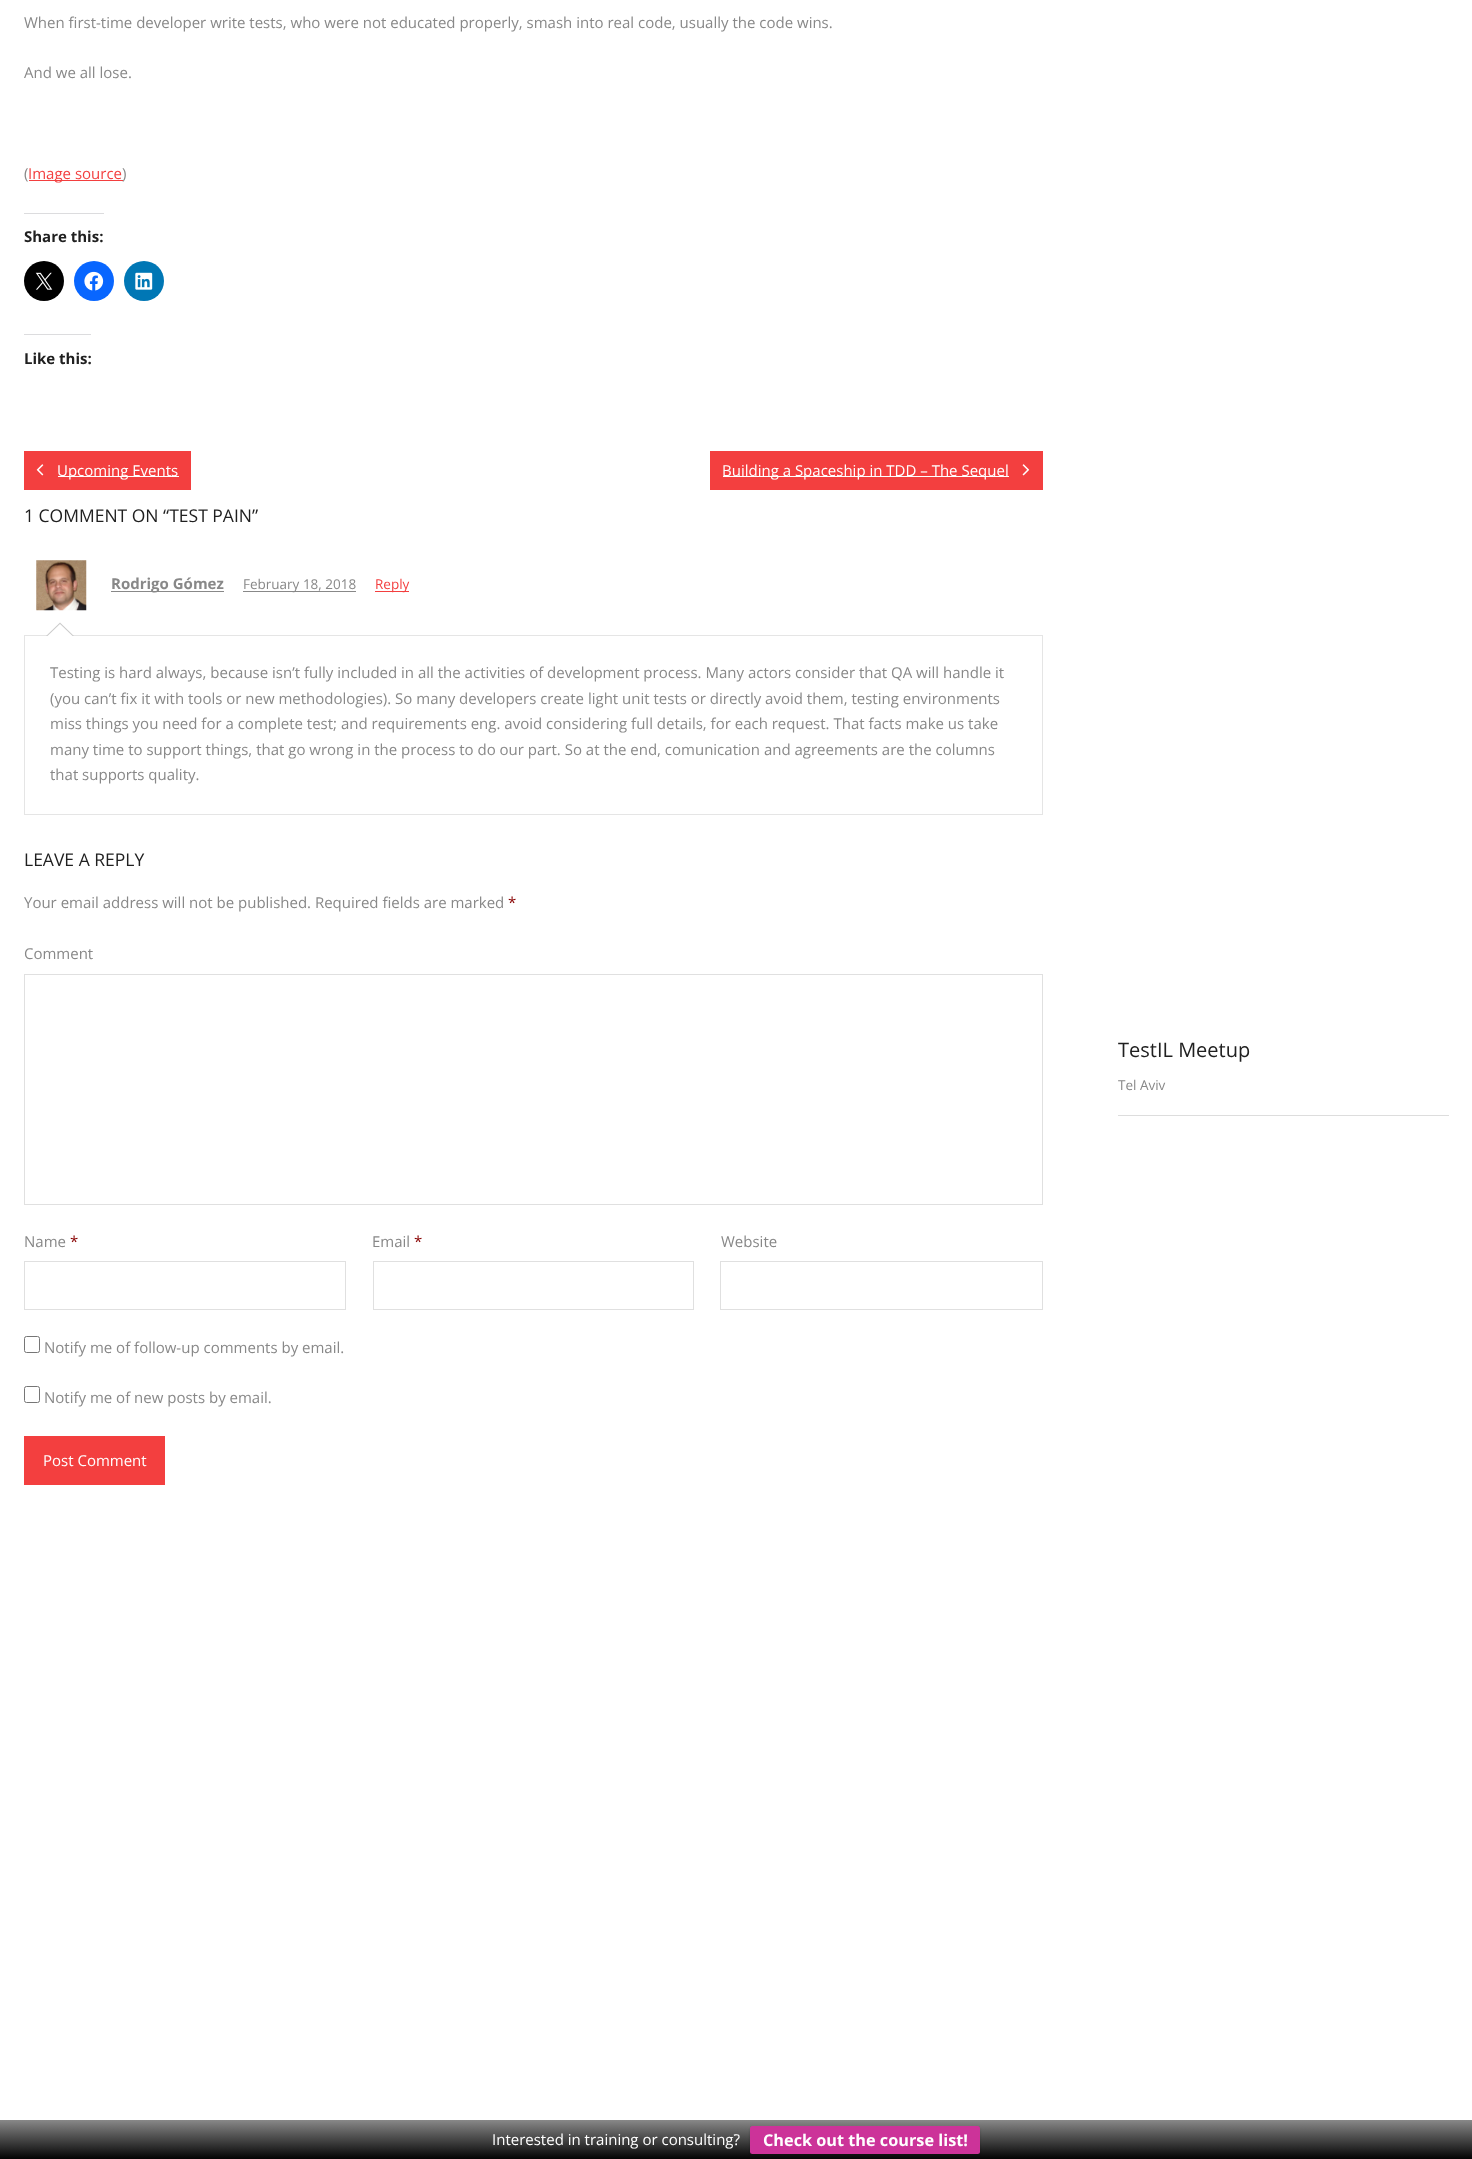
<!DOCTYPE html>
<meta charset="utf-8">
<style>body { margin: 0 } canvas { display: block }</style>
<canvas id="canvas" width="1472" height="2159"></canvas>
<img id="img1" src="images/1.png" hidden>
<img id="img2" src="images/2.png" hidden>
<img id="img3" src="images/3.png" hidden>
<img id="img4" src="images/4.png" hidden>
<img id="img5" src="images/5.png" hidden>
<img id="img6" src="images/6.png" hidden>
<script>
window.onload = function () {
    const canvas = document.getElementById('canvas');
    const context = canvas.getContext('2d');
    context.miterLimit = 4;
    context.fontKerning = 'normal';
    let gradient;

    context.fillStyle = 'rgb(255, 255, 255)';
    context.fillRect(0, 0, 1472, 2159);
    context.fillStyle = 'rgb(243, 63, 63)';
    context.fillRect(29, 180, 94, 1);
    context.fillStyle = 'rgb(220, 220, 222)';
    context.fillRect(24, 213, 80, 1);
    context.fillStyle = 'rgb(0, 0, 0)';
    context.beginPath();
    context.arc(44, 281, 20, 0, 2 * Math.PI);
    context.fill();
    context.drawImage(document.getElementById('img1'), 35, 272, 18, 18);
    context.fillStyle = 'rgb(8, 102, 255)';
    context.beginPath();
    context.arc(94, 281, 20, 0, 2 * Math.PI);
    context.fill();
    context.drawImage(document.getElementById('img2'), 84, 271, 20, 20);
    context.fillStyle = 'rgb(0, 119, 181)';
    context.beginPath();
    context.arc(144, 281, 20, 0, 2 * Math.PI);
    context.fill();
    context.drawImage(document.getElementById('img3'), 135, 272, 18, 18);
    context.fillStyle = 'rgb(220, 220, 222)';
    context.fillRect(24, 334, 67, 1);
    context.fillStyle = 'rgb(243, 63, 63)';
    context.fillRect(24, 451, 167, 39);
    context.drawImage(document.getElementById('img4'), 36, 464, 8, 12);
    context.fillStyle = 'rgb(255, 255, 255)';
    context.fillRect(58, 476, 121, 1);
    context.fillStyle = 'rgb(243, 63, 63)';
    context.fillRect(710, 451, 333, 39);
    context.fillStyle = 'rgb(255, 255, 255)';
    context.fillRect(723, 476, 286, 1);
    context.drawImage(document.getElementById('img5'), 1022, 464, 8, 12);
    context.drawImage(document.getElementById('img6'), 36, 560, 51, 51);
    context.fillStyle = 'rgb(136, 136, 136)';
    context.fillRect(111, 591, 113, 1);
    context.fillRect(243, 591, 113, 1);
    context.fillStyle = 'rgb(243, 63, 63)';
    context.fillRect(375, 591, 34, 1);
    context.strokeStyle = 'rgb(229, 229, 229)';
    context.strokeRect(24.5, 635.5, 1018, 179);
    context.fillStyle = 'rgb(204, 204, 204)';
    context.beginPath();
    context.moveTo(74, 636);
    context.lineTo(46, 636);
    context.lineTo(60, 622.5);
    context.closePath();
    context.fill();
    context.fillStyle = 'rgb(255, 255, 255)';
    context.beginPath();
    context.moveTo(72.5, 636);
    context.lineTo(47.5, 636);
    context.lineTo(60, 624);
    context.closePath();
    context.fill();
    context.strokeStyle = 'rgb(224, 224, 224)';
    context.strokeRect(24.5, 974.5, 1018, 230);
    context.strokeRect(24.5, 1261.5, 321, 48);
    context.strokeRect(373.5, 1261.5, 320, 48);
    context.strokeRect(720.5, 1261.5, 322, 48);
    context.beginPath();
    context.roundRect(24.5, 1336.5, 15, 16, 2);
    context.strokeStyle = 'rgb(118, 118, 118)';
    context.stroke();
    context.beginPath();
    context.roundRect(24.5, 1386.5, 15, 16, 2);
    context.stroke();
    context.fillStyle = 'rgb(243, 63, 63)';
    context.fillRect(24, 1436, 141, 49);
    context.fillStyle = 'rgb(221, 221, 221)';
    context.fillRect(1118, 1115, 331, 1);
    gradient = context.createLinearGradient(736, 2120, 736, 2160);
    gradient.addColorStop(0, 'rgb(136, 136, 136)');
    gradient.addColorStop(1, 'rgb(0, 0, 0)');
    context.fillStyle = gradient;
    context.fillRect(0, 2120, 1472, 39);
    context.fillStyle = 'rgba(0, 0, 0, 0.2)';
    context.filter = 'blur(1px)';
    context.beginPath();
    context.roundRect(750, 2128, 230, 27, 2.5);
    context.fill();
    context.filter = 'none';
    context.fillStyle = 'rgb(204, 51, 153)';
    context.beginPath();
    context.roundRect(750, 2126, 230, 28, 2.5);
    context.fill();
    context.font = '15px Open Sans';
    context.fillStyle = 'rgb(136, 136, 136)';
    context.fillText('When first-time developer write tests, who were not educated properly, smash into real code, usually the code wins.', 24, 28);
    context.fillText('And we all lose.', 24, 78);
    context.fillText('(', 24, 179);
    context.fillStyle = 'rgb(243, 63, 63)';
    context.fillText('Image source', 28, 179);
    context.fillStyle = 'rgb(136, 136, 136)';
    context.fillText(')', 122, 179);
    context.font = 'bold 15px Open Sans';
    context.fillStyle = 'rgb(32, 32, 32)';
    context.fillText('Share this:', 24, 242);
    context.fillText('Like this:', 24, 364);
    context.font = '15px Open Sans';
    context.fillStyle = 'rgb(255, 255, 255)';
    context.fillText('Upcoming Events', 57, 476);
    context.fillText('Building a Spaceship in TDD – The Sequel', 722, 476);
    context.font = '17.5px Open Sans';
    context.fillStyle = 'rgb(32, 32, 32)';
    context.fillText('1 COMMENT ON “TEST PAIN”', 24, 522);
    context.font = 'bold 15px Open Sans';
    context.fillStyle = 'rgb(136, 136, 136)';
    context.fillText('Rodrigo Gómez', 111, 589);
    context.font = '13.5px Open Sans';
    context.fillText('February 18, 2018', 243, 589);
    context.fillStyle = 'rgb(243, 63, 63)';
    context.fillText('Reply', 375, 589);
    context.font = '15px Open Sans';
    context.fillStyle = 'rgb(136, 136, 136)';
    context.fillText('Testing is hard always, because isn’t fully included in all the activities of development process. Many actors consider that QA will handle it', 50, 678);
    context.fillText('(you can’t fix it with tools or new methodologies). So many developers create light unit tests or directly avoid them, testing environments', 50, 704);
    context.fillText('miss things you need for a complete test; and requirements eng. avoid considering full details, for each request. That facts make us take', 50, 729);
    context.fillText('many time to support things, that go wrong in the process to do our part. So at the end, comunication and agreements are the columns', 50, 755);
    context.fillText('that supports quality.', 50, 780);
    context.font = '17.5px Open Sans';
    context.fillStyle = 'rgb(32, 32, 32)';
    context.fillText('LEAVE A REPLY', 24, 866);
    context.font = '15px Open Sans';
    context.fillStyle = 'rgb(136, 136, 136)';
    context.fillText('Your email address will not be published. Required fields are marked', 24, 908);
    context.fillStyle = 'rgb(136, 0, 0)';
    context.fillText('*', 508, 908);
    context.fillStyle = 'rgb(136, 136, 136)';
    context.fillText('Comment', 24, 959);
    context.fillText('Name', 24, 1247);
    context.fillStyle = 'rgb(136, 0, 0)';
    context.fillText('*', 70, 1247);
    context.fillStyle = 'rgb(136, 136, 136)';
    context.fillText('Email', 372, 1247);
    context.fillStyle = 'rgb(136, 0, 0)';
    context.fillText('*', 414, 1247);
    context.fillStyle = 'rgb(136, 136, 136)';
    context.fillText('Website', 721, 1247);
    context.fillText('Notify me of follow-up comments by email.', 44, 1353);
    context.fillText('Notify me of new posts by email.', 44, 1403);
    context.fillStyle = 'rgb(255, 255, 255)';
    context.fillText('Post Comment', 43, 1466);
    context.font = '20px Open Sans';
    context.fillStyle = 'rgb(32, 32, 32)';
    context.fillText('TestIL Meetup', 1118, 1057);
    context.font = '13.5px Open Sans';
    context.fillStyle = 'rgb(136, 136, 136)';
    context.fillText('Tel Aviv', 1118, 1090);
    context.font = '15px Open Sans';
    context.fillStyle = 'rgb(255, 255, 255)';
    context.fillText('Interested in training or consulting?', 492, 2145);
    context.font = 'bold 16.25px Open Sans';
    context.fillText('Check out the course list!', 763, 2146);
};
</script>
